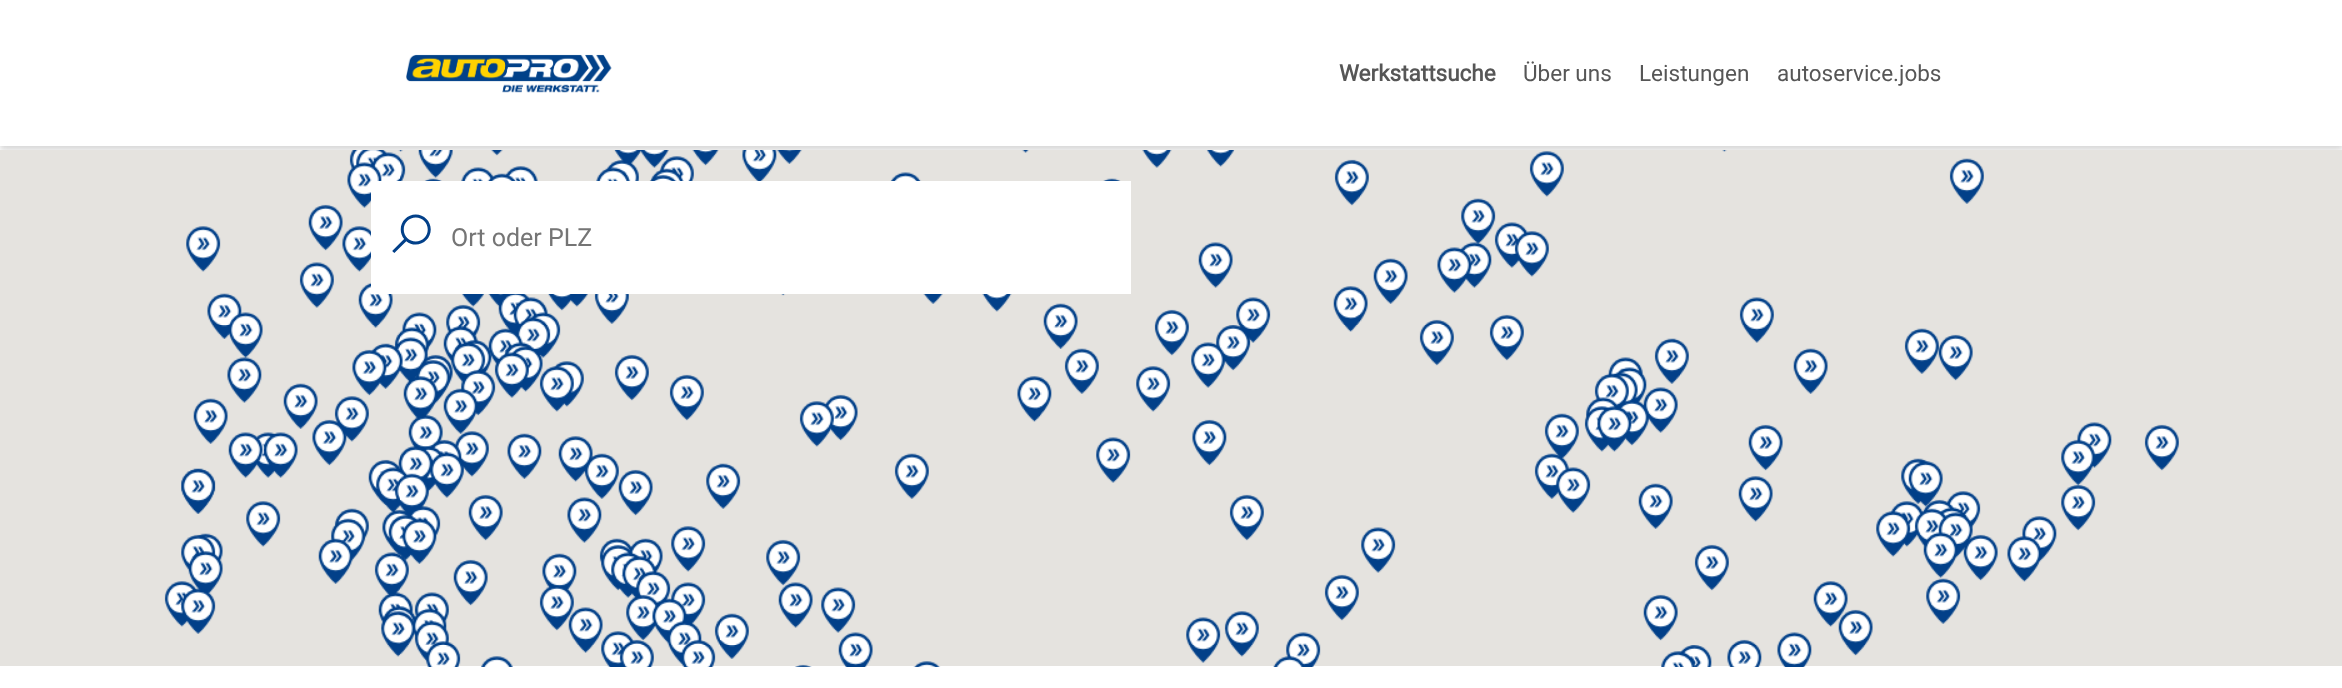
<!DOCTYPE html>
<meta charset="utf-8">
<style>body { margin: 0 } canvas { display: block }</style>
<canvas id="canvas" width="2342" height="688"></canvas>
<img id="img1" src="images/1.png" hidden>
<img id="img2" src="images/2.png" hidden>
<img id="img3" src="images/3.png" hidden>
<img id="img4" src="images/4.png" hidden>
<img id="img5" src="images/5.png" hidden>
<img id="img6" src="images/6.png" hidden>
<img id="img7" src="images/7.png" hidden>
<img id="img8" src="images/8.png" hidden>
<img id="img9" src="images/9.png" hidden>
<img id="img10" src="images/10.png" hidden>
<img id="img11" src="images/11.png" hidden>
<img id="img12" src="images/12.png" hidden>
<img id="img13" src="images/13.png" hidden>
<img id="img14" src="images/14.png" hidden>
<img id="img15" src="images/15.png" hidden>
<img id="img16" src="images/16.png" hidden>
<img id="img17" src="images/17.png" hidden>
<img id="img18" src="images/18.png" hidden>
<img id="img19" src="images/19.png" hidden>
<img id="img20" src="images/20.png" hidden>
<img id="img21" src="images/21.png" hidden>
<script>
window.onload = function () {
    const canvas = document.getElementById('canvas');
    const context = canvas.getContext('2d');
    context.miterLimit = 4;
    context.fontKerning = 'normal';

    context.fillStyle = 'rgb(255, 255, 255)';
    context.fillRect(0, 0, 2342, 688);
    context.save();
    context.beginPath();
    context.rect(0, 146, 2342, 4);
    context.clip();
    context.fillStyle = 'rgba(0, 0, 0, 0.16)';
    context.filter = 'blur(3px)';
    context.beginPath();
    context.rect(0, 4, 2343, 146);
    context.fill();
    context.filter = 'none';
    context.restore();
    context.drawImage(document.getElementById('img1'), 406, 54, 206, 39);
    context.fillStyle = 'rgb(229, 227, 223)';
    context.fillRect(0, 150, 2342, 516);
    context.drawImage(document.getElementById('img2'), 186, 150, 214, 175);
    context.drawImage(document.getElementById('img3'), 400, 150, 319, 175);
    context.drawImage(document.getElementById('img4'), 742, 150, 287, 162);
    context.drawImage(document.getElementById('img5'), 1043, 150, 317, 175);
    context.drawImage(document.getElementById('img6'), 1360, 151, 204, 174);
    context.drawImage(document.getElementById('img7'), 1722, 150, 262, 175);
    context.drawImage(document.getElementById('img8'), 164, 325, 236, 320);
    context.drawImage(document.getElementById('img9'), 400, 325, 320, 320);
    context.drawImage(document.getElementById('img10'), 720, 376, 320, 269);
    context.drawImage(document.getElementById('img11'), 1040, 325, 319, 320);
    context.drawImage(document.getElementById('img12'), 1361, 325, 319, 316);
    context.drawImage(document.getElementById('img13'), 1680, 325, 318, 320);
    context.drawImage(document.getElementById('img14'), 2007, 422, 172, 160);
    context.drawImage(document.getElementById('img15'), 387, 645, 13, 12);
    context.drawImage(document.getElementById('img16'), 400, 645, 316, 22);
    context.drawImage(document.getElementById('img17'), 720, 645, 221, 22);
    context.drawImage(document.getElementById('img18'), 1188, 645, 133, 22);
    context.drawImage(document.getElementById('img19'), 1661, 651, 19, 16);
    context.drawImage(document.getElementById('img20'), 1680, 645, 186, 22);
    context.fillStyle = 'rgb(255, 255, 255)';
    context.fillRect(371, 181, 760, 113);
    context.drawImage(document.getElementById('img21'), 392, 214, 39, 39);
    context.font = 'bold 22.5px Roboto';
    context.fillStyle = 'rgb(86, 86, 86)';
    context.fillText('Werkstattsuche', 1339, 81);
    context.font = '22.5px Roboto';
    context.fillText('Über uns', 1523, 81);
    context.fillText('Leistungen', 1639, 81);
    context.fillText('autoservice.jobs', 1777, 81);
    context.font = '25px Roboto';
    context.fillStyle = 'rgb(117, 117, 117)';
    context.fillText('Ort oder PLZ', 451, 246);
};
</script>
